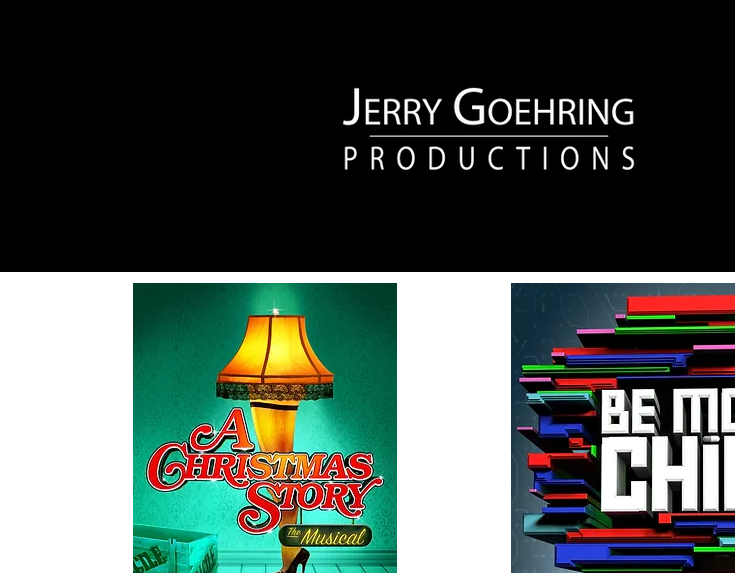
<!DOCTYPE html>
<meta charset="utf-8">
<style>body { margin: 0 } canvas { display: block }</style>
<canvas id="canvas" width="735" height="573"></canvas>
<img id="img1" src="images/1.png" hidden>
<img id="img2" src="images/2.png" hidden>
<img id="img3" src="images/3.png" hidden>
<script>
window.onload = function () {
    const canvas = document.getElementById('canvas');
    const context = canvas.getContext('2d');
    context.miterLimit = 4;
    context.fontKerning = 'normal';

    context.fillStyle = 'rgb(0, 0, 0)';
    context.fillRect(0, 0, 735, 573);
    context.drawImage(document.getElementById('img1'), 342, 87, 294, 85);
    context.fillStyle = 'rgb(255, 255, 255)';
    context.fillRect(0, 272, 735, 301);
    context.drawImage(document.getElementById('img2'), 133, 283, 264, 290);
    context.drawImage(document.getElementById('img3'), 511, 283, 224, 290);
};
</script>
